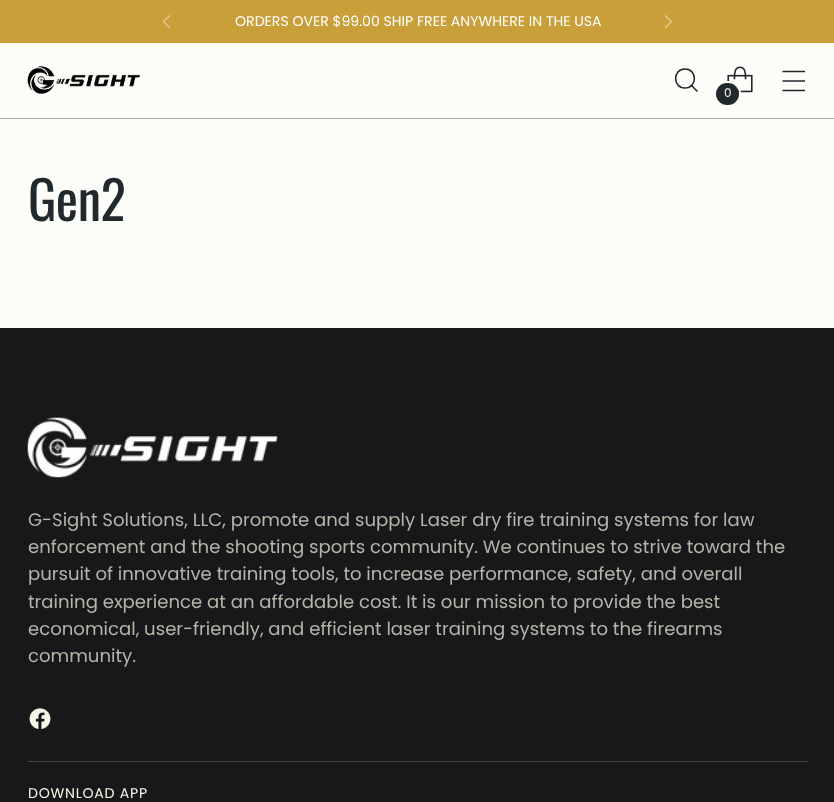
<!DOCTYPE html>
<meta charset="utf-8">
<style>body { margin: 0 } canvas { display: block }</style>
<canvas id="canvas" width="834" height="802"></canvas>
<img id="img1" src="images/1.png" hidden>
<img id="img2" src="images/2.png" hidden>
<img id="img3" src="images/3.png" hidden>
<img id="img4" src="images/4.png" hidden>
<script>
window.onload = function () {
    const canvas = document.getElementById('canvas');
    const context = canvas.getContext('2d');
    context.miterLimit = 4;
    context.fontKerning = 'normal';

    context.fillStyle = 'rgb(252, 252, 249)';
    context.fillRect(0, 0, 834, 802);
    context.fillStyle = 'rgb(200, 159, 57)';
    context.fillRect(0, 0, 834, 43);
    context.beginPath();
    context.moveTo(170, 15.5);
    context.lineTo(163.5, 21.5);
    context.lineTo(170, 28);
    context.strokeStyle = 'rgb(228, 207, 156)';
    context.lineWidth = 1.2;
    context.stroke();
    context.beginPath();
    context.moveTo(665, 28);
    context.lineTo(671.5, 21.5);
    context.lineTo(665, 15.5);
    context.stroke();
    context.fillStyle = 'rgb(170, 170, 170)';
    context.fillRect(0, 118, 834, 1);
    context.drawImage(document.getElementById('img1'), 27, 66, 113, 28);
    context.beginPath();
    context.moveTo(685, 88);
    context.bezierCurveTo(697.5, 88, 697.5, 69, 685, 69);
    context.bezierCurveTo(672.5, 69, 672.5, 88, 685, 88);
    context.closePath();
    context.strokeStyle = 'rgb(34, 41, 45)';
    context.lineWidth = 1.6;
    context.lineCap = 'round';
    context.stroke();
    context.beginPath();
    context.moveTo(691.5, 85.5);
    context.lineTo(697.5, 91.5);
    context.lineCap = 'butt';
    context.stroke();
    context.drawImage(document.getElementById('img2'), 727, 66, 26, 27);
    context.beginPath();
    context.roundRect(716, 82, 24, 25, 12);
    context.strokeStyle = 'rgb(252, 252, 249)';
    context.lineWidth = 2;
    context.stroke();
    context.fillStyle = 'rgb(34, 41, 45)';
    context.beginPath();
    context.roundRect(716, 83, 23, 22, 11);
    context.fill();
    context.beginPath();
    context.moveTo(782.5, 81);
    context.lineTo(805, 81);
    context.moveTo(782.5, 71.5);
    context.lineTo(805, 71.5);
    context.moveTo(782.5, 90.5);
    context.lineTo(805, 90.5);
    context.strokeStyle = 'rgb(34, 41, 45)';
    context.lineWidth = 1.6;
    context.stroke();
    context.fillStyle = 'rgb(23, 24, 25)';
    context.fillRect(0, 328, 834, 474);
    context.fillStyle = 'rgb(68, 69, 66)';
    context.fillRect(28, 761, 780, 1);
    context.drawImage(document.getElementById('img3'), 27, 417, 251, 61);
    context.drawImage(document.getElementById('img4'), 29, 708, 22, 21);
    context.font = '14.1px Poppins';
    context.fillStyle = 'rgb(255, 255, 255)';
    context.fillText('ORDERS OVER $99.00 SHIP FREE ANYWHERE IN THE USA', 235, 26);
    context.font = '12px Poppins';
    context.fillStyle = 'rgb(252, 252, 249)';
    context.fillText('0', 724, 97);
    context.letterSpacing = '-0.5px';
    context.font = '53px Oswald';
    context.fillStyle = 'rgb(34, 41, 45)';
    context.fillText('Gen2', 28, 221);
    context.letterSpacing = '0px';
    context.font = '18.1px Poppins';
    context.fillStyle = 'rgb(180, 180, 170)';
    context.fillText('G-Sight Solutions, LLC, promote and supply Laser dry fire training systems for law', 28, 526);
    context.fillText('enforcement and the shooting sports community. We continues to strive toward the', 28, 553);
    context.fillText('pursuit of innovative training tools, to increase performance, safety, and overall', 28, 580);
    context.fillText('training experience at an affordable cost. It is our mission to provide the best', 28, 608);
    context.fillText('economical, user-friendly, and efficient laser training systems to the firearms', 28, 635);
    context.fillText('community.', 28, 662);
    context.letterSpacing = '0.75px';
    context.font = '14.1px Poppins';
    context.fillStyle = 'rgb(247, 247, 232)';
    context.fillText('DOWNLOAD APP', 28, 798);
};
</script>
